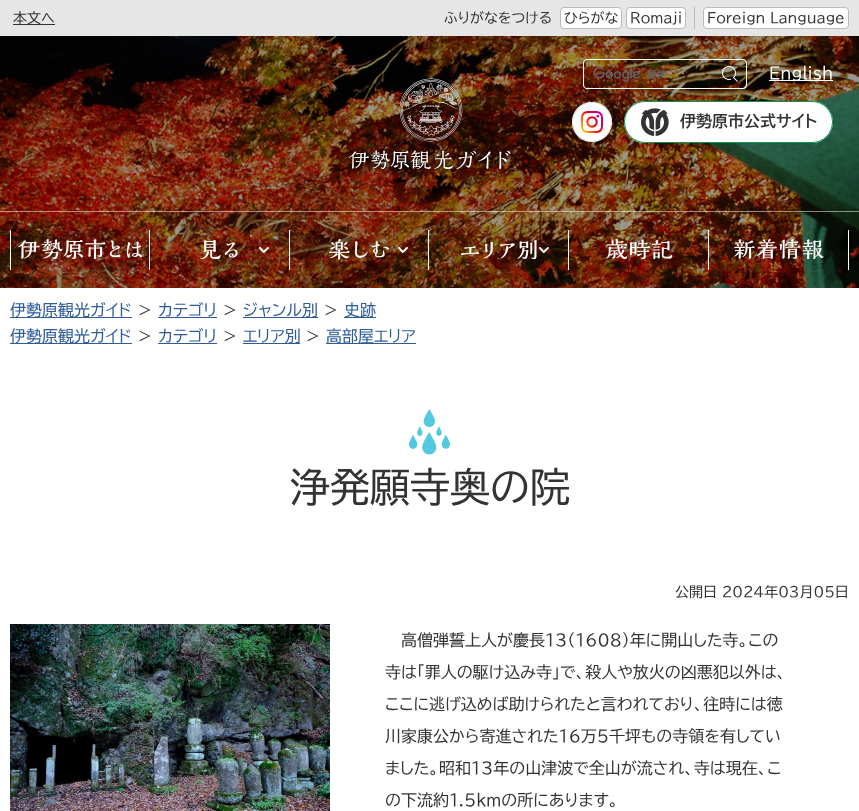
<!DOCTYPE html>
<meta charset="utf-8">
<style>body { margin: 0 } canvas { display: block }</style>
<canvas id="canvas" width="859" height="811"></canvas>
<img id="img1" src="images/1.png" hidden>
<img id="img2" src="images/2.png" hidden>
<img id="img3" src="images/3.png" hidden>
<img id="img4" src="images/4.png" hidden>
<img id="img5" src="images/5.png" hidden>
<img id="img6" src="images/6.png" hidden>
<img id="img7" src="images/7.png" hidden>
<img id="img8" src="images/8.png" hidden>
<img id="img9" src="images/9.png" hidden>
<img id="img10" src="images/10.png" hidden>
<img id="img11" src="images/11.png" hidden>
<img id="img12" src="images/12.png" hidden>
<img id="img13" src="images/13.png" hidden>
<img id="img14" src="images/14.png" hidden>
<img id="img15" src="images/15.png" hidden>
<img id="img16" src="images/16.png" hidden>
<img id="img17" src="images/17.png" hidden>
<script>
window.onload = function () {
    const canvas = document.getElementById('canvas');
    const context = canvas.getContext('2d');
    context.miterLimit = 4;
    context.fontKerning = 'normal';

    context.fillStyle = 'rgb(255, 255, 255)';
    context.fillRect(0, 0, 859, 811);
    context.fillStyle = 'rgb(230, 230, 230)';
    context.fillRect(0, 0, 859, 36);
    context.fillStyle = 'rgb(51, 51, 51)';
    context.fillRect(13, 24, 42, 1);
    context.fillStyle = 'rgb(255, 255, 255)';
    context.beginPath();
    context.roundRect(560.5, 7.5, 61, 21, 3.5);
    context.fill();
    context.strokeStyle = 'rgb(187, 187, 187)';
    context.stroke();
    context.beginPath();
    context.roundRect(626.5, 7.5, 59, 21, 3.5);
    context.fill();
    context.stroke();
    context.fillStyle = 'rgb(187, 187, 187)';
    context.fillRect(694, 7, 1, 22);
    context.fillStyle = 'rgb(255, 255, 255)';
    context.beginPath();
    context.roundRect(703.5, 7.5, 145, 21, 3.5);
    context.fill();
    context.stroke();
    context.drawImage(document.getElementById('img1'), 0, 36, 859, 252);
    context.drawImage(document.getElementById('img2'), 348, 78, 163, 93);
    context.drawImage(document.getElementById('img3'), 593, 67, 72, 15);
    context.beginPath();
    context.moveTo(587, 59);
    context.lineTo(715, 59);
    context.lineTo(715, 89);
    context.lineTo(587, 89);
    context.bezierCurveTo(585, 89, 583, 87, 583, 85);
    context.lineTo(583, 63);
    context.bezierCurveTo(583, 61, 585, 59, 587, 59);
    context.closePath();
    context.moveTo(587, 60);
    context.lineTo(715, 60);
    context.lineTo(715, 88);
    context.lineTo(587, 88);
    context.bezierCurveTo(585, 88, 584, 87, 584, 85);
    context.lineTo(584, 63);
    context.bezierCurveTo(584, 61, 585, 60, 587, 60);
    context.closePath();
    context.fill('evenodd');
    context.drawImage(document.getElementById('img4'), 722, 66, 16, 16);
    context.beginPath();
    context.moveTo(715, 59);
    context.lineTo(743, 59);
    context.bezierCurveTo(745, 59, 747, 61, 747, 63);
    context.lineTo(747, 85);
    context.bezierCurveTo(747, 87, 745, 89, 743, 89);
    context.lineTo(715, 89);
    context.closePath();
    context.moveTo(715, 60);
    context.lineTo(743, 60);
    context.bezierCurveTo(744.5, 60, 746, 61.5, 746, 63);
    context.lineTo(746, 85);
    context.bezierCurveTo(746, 86.5, 744.5, 88, 743, 88);
    context.lineTo(715, 88);
    context.closePath();
    context.fill('evenodd');
    context.fillRect(769, 80, 64, 1);
    context.drawImage(document.getElementById('img5'), 572, 102, 40, 40);
    context.beginPath();
    context.roundRect(624, 101, 209, 42, 21);
    context.fill();
    context.drawImage(document.getElementById('img6'), 641, 108, 28, 28);
    context.beginPath();
    context.roundRect(624.5, 101.5, 208, 41, 20.5);
    context.strokeStyle = 'rgb(0, 151, 86)';
    context.stroke();
    context.fillStyle = 'rgba(255, 255, 255, 0.5)';
    context.fillRect(0, 211, 859, 1);
    context.fillStyle = 'rgb(255, 255, 255)';
    context.fillRect(149, 230, 1, 40);
    context.fillRect(10, 230, 1, 40);
    context.drawImage(document.getElementById('img7'), 18, 239, 124, 20);
    context.drawImage(document.getElementById('img8'), 259, 247, 10, 6);
    context.fillRect(289, 230, 1, 40);
    context.drawImage(document.getElementById('img9'), 200, 240, 38, 19);
    context.drawImage(document.getElementById('img10'), 398, 247, 10, 6);
    context.fillRect(428, 230, 1, 40);
    context.drawImage(document.getElementById('img11'), 329, 239, 60, 21);
    context.fillRect(568, 230, 1, 40);
    context.drawImage(document.getElementById('img12'), 461, 240, 76, 19);
    context.drawImage(document.getElementById('img13'), 539, 247, 10, 6);
    context.fillRect(708, 230, 1, 40);
    context.drawImage(document.getElementById('img14'), 606, 239, 66, 20);
    context.fillRect(848, 230, 1, 40);
    context.drawImage(document.getElementById('img15'), 734, 239, 90, 20);
    context.fillStyle = 'rgb(45, 92, 153)';
    context.fillRect(10, 317, 122, 1);
    context.fillRect(158, 317, 59, 1);
    context.fillRect(243, 317, 75, 1);
    context.fillRect(344, 317, 32, 1);
    context.fillRect(10, 343, 122, 1);
    context.fillRect(158, 343, 59, 1);
    context.fillRect(243, 343, 57, 1);
    context.fillRect(326, 343, 90, 1);
    context.drawImage(document.getElementById('img16'), 409, 409, 41, 46);
    context.drawImage(document.getElementById('img17'), 10, 624, 320, 187);
    context.font = '14px BIZ UDPGothic';
    context.fillStyle = 'rgb(51, 51, 51)';
    context.fillText('本文へ', 13, 23);
    context.fillText('ふりがなをつける', 444, 23);
    context.fillText('ひらがな', 564, 23);
    context.fillText('Romaji', 630, 23);
    context.fillText('Foreign Language', 707, 23);
    context.font = '16px BIZ UDPGothic';
    context.fillStyle = 'rgb(255, 255, 255)';
    context.fillText('English', 769, 79);
    context.font = 'bold 16px BIZ UDPGothic';
    context.fillStyle = 'rgb(51, 51, 51)';
    context.fillText('伊勢原市公式サイト', 680, 127);
    context.font = '16px BIZ UDPGothic';
    context.fillStyle = 'rgb(45, 92, 153)';
    context.fillText('伊勢原観光ガイド', 10, 316);
    context.fillStyle = 'rgb(51, 51, 51)';
    context.fillText('＞', 137, 316);
    context.fillStyle = 'rgb(45, 92, 153)';
    context.fillText('カテゴリ', 158, 316);
    context.fillStyle = 'rgb(51, 51, 51)';
    context.fillText('＞', 222, 316);
    context.fillStyle = 'rgb(45, 92, 153)';
    context.fillText('ジャンル別', 243, 316);
    context.fillStyle = 'rgb(51, 51, 51)';
    context.fillText('＞', 323, 316);
    context.fillStyle = 'rgb(45, 92, 153)';
    context.fillText('史跡', 344, 316);
    context.fillText('伊勢原観光ガイド', 10, 342);
    context.fillStyle = 'rgb(51, 51, 51)';
    context.fillText('＞', 137, 342);
    context.fillStyle = 'rgb(45, 92, 153)';
    context.fillText('カテゴリ', 158, 342);
    context.fillStyle = 'rgb(51, 51, 51)';
    context.fillText('＞', 222, 342);
    context.fillStyle = 'rgb(45, 92, 153)';
    context.fillText('エリア別', 243, 342);
    context.fillStyle = 'rgb(51, 51, 51)';
    context.fillText('＞', 305, 342);
    context.fillStyle = 'rgb(45, 92, 153)';
    context.fillText('高部屋エリア', 326, 342);
    context.font = '40px BIZ UDPGothic';
    context.fillStyle = 'rgb(51, 51, 51)';
    context.fillText('浄発願寺奥の院', 290, 502);
    context.font = '14px BIZ UDPGothic';
    context.fillText('公開日 2024年03月05日', 675, 597);
    context.font = '16px BIZ UDPGothic';
    context.fillText('高僧弾誓上人が慶長13（1608）年に開山した寺。この', 401, 646);
    context.fillText('寺は「罪人の駆け込み寺」で、殺人や放火の凶悪犯以外は、', 385, 678);
    context.fillText('ここに逃げ込めば助けられたと言われており、往時には徳', 385, 710);
    context.fillText('川家康公から寄進された16万5千坪もの寺領を有してい', 385, 742);
    context.fillText('ました。昭和13年の山津波で全山が流され、寺は現在、こ', 385, 774);
    context.fillText('の下流約1.5kmの所にあります。', 385, 806);
};
</script>
